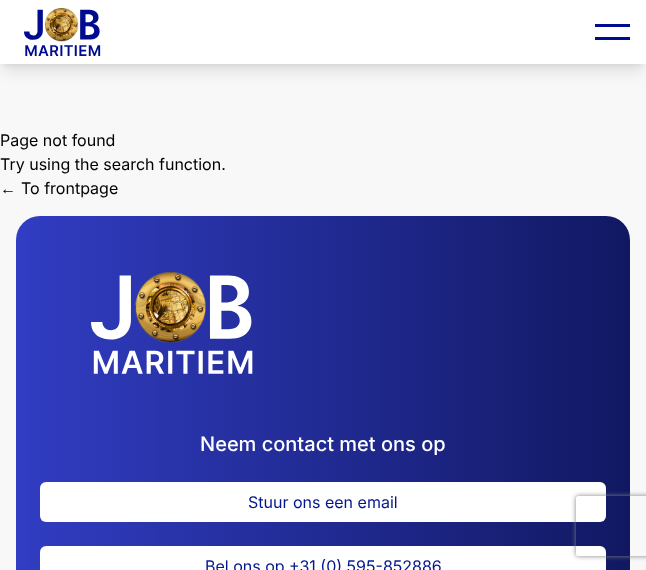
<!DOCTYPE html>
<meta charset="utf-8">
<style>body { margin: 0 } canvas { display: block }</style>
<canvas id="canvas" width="646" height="570"></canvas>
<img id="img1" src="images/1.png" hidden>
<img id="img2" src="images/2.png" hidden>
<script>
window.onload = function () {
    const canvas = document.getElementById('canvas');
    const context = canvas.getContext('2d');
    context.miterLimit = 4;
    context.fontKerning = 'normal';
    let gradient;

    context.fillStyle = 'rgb(248, 248, 248)';
    context.fillRect(0, 0, 646, 570);
    context.fillStyle = 'rgba(0, 0, 0, 0.1)';
    context.filter = 'blur(3px)';
    context.beginPath();
    context.rect(4, 8, 638, 56);
    context.fill();
    context.filter = 'none';
    context.filter = 'blur(7.5px)';
    context.beginPath();
    context.rect(3, 13, 640, 58);
    context.fill();
    context.filter = 'none';
    context.fillStyle = 'rgb(255, 255, 255)';
    context.fillRect(0, 0, 646, 64);
    context.drawImage(document.getElementById('img1'), 24, 8, 77, 48);
    context.fillStyle = 'rgb(0, 12, 144)';
    context.fillRect(595, 24, 35, 3);
    context.fillRect(595, 37, 35, 3);
    gradient = context.createLinearGradient(16, 421, 630, 421);
    gradient.addColorStop(0, 'rgb(49, 61, 195)');
    gradient.addColorStop(1, 'rgb(17, 24, 98)');
    context.fillStyle = gradient;
    context.beginPath();
    context.roundRect(16, 216, 614, 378, 24);
    context.fill();
    context.drawImage(document.getElementById('img2'), 91, 272, 162, 102);
    context.fillStyle = 'rgb(255, 255, 255)';
    context.beginPath();
    context.roundRect(40, 482, 566, 40, 6);
    context.fill();
    context.beginPath();
    context.roundRect(40, 546, 566, 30, 6);
    context.fill();
    context.save();
    context.beginPath();
    context.moveTo(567, 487);
    context.lineTo(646, 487);
    context.lineTo(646, 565);
    context.lineTo(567, 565);
    context.closePath();
    context.moveTo(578, 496);
    context.lineTo(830, 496);
    context.bezierCurveTo(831, 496, 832, 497, 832, 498);
    context.lineTo(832, 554);
    context.bezierCurveTo(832, 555, 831, 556, 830, 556);
    context.lineTo(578, 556);
    context.bezierCurveTo(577, 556, 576, 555, 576, 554);
    context.lineTo(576, 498);
    context.bezierCurveTo(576, 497, 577, 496, 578, 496);
    context.closePath();
    context.clip('evenodd');
    context.fillStyle = 'rgb(128, 128, 128)';
    context.filter = 'blur(2.5px)';
    context.beginPath();
    context.roundRect(576, 496, 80, 60, 2);
    context.fill();
    context.filter = 'none';
    context.restore();
    context.font = '16px Inter';
    context.fillStyle = 'rgb(0, 0, 0)';
    context.fillText('Page not found', 0, 146);
    context.fillText('Try using the search function.', 0, 170);
    context.font = '16px Liberation Sans';
    context.fillText('←', 0, 194);
    context.font = '16px Inter';
    context.fillText('To frontpage', 21, 194);
    context.font = '500 20px Inter';
    context.fillStyle = 'rgb(255, 255, 255)';
    context.fillText('Neem contact met ons op', 200, 451);
    context.font = '16px Inter';
    context.fillStyle = 'rgb(3, 23, 141)';
    context.fillText('Stuur ons een email', 248, 508);
    context.fillText('Bel ons op +31 (0) 595-852886', 205, 572);
};
</script>
